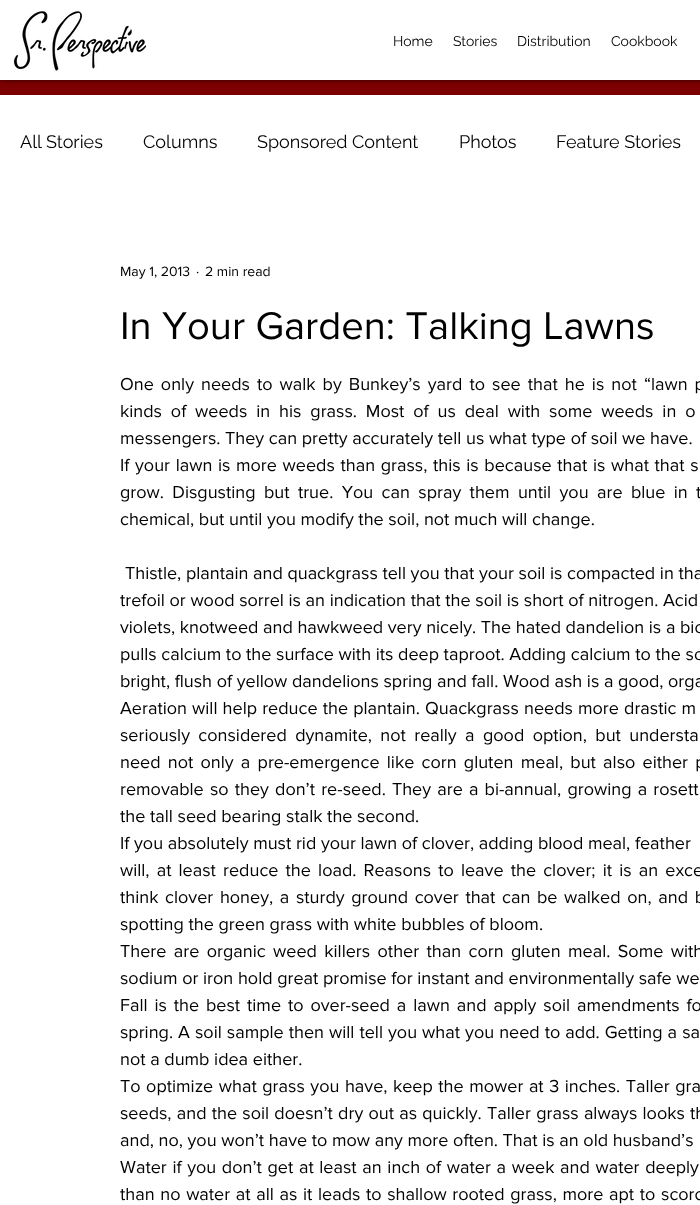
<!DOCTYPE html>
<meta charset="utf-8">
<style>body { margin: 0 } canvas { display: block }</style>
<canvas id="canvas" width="700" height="1205"></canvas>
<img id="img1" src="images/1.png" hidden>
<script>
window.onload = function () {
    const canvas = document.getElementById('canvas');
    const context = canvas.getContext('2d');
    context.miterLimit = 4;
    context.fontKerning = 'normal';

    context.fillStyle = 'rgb(255, 255, 255)';
    context.fillRect(0, 0, 700, 1205);
    context.fillStyle = 'rgb(125, 0, 0)';
    context.fillRect(0, 80, 700, 15);
    context.save();
    context.beginPath();
    context.rect(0, 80, 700, 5);
    context.clip();
    context.fillStyle = 'rgba(0, 0, 0, 0.7)';
    context.filter = 'blur(2.5px)';
    context.beginPath();
    context.rect(0, 0, 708, 80);
    context.fill();
    context.filter = 'none';
    context.restore();
    context.drawImage(document.getElementById('img1'), 13, 11, 134, 60);
    context.font = '14px Raleway';
    context.fillStyle = 'rgb(0, 0, 0)';
    context.fillText('Home', 393, 46);
    context.fillText('Stories', 453, 46);
    context.fillText('Distribution', 517, 46);
    context.fillText('Cookbook', 611, 46);
    context.font = '18px Raleway';
    context.fillText('All Stories', 20, 148);
    context.fillText('Columns', 143, 148);
    context.fillText('Sponsored Content', 257, 148);
    context.fillText('Photos', 459, 148);
    context.fillText('Feature Stories', 556, 148);
    context.font = '14px "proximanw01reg"';
    context.fillText('May 1, 2013', 120, 276);
    context.fillText('·', 196, 276);
    context.fillText('2 min read', 205, 276);
    context.font = '40px "proximanw01reg"';
    context.fillText('In Your Garden: Talking Lawns', 120, 339);
    context.wordSpacing = '2.4px';
    context.font = '18px "proximanw01reg"';
    context.fillText('One only needs to walk by Bunkey’s yard to see that he is not “lawn p', 120, 390);
    context.wordSpacing = '4.25px';
    context.fillText('kinds of weeds in his grass. Most of us deal with some weeds in o', 120, 417);
    context.wordSpacing = '0px';
    context.fillText('messengers. They can pretty accurately tell us what type of soil we have.', 120, 444);
    context.wordSpacing = '1px';
    context.fillText('If your lawn is more weeds than grass, this is because that is what that s', 120, 471);
    context.wordSpacing = '3.75px';
    context.fillText('grow. Disgusting but true. You can spray them until you are blue in t', 120, 498);
    context.wordSpacing = '0px';
    context.fillText('chemical, but until you modify the soil, not much will change.', 120, 525);
    context.fillText('Thistle, plantain and quackgrass tell you that your soil is compacted in tha', 125, 579);
    context.fillText('trefoil or wood sorrel is an indication that the soil is short of nitrogen. Acid', 120, 606);
    context.fillText('violets, knotweed and hawkweed very nicely. The hated dandelion is a bio', 120, 633);
    context.fillText('pulls calcium to the surface with its deep taproot. Adding calcium to the so', 120, 660);
    context.fillText('bright, flush of yellow dandelions spring and fall. Wood ash is a good, orga', 120, 687);
    context.wordSpacing = '0.5px';
    context.fillText('Aeration will help reduce the plantain. Quackgrass needs more drastic m', 120, 714);
    context.wordSpacing = '3.75px';
    context.fillText('seriously considered dynamite, not really a good option, but understa', 120, 741);
    context.wordSpacing = '2.6px';
    context.fillText('need not only a pre-emergence like corn gluten meal, but also either p', 120, 768);
    context.wordSpacing = '1.5px';
    context.fillText('removable so they don’t re-seed. They are a bi-annual, growing a rosett', 120, 795);
    context.wordSpacing = '0px';
    context.fillText('the tall seed bearing stalk the second.', 120, 822);
    context.fillText('If you absolutely must rid your lawn of clover, adding blood meal, feather', 120, 849);
    context.wordSpacing = '2.5px';
    context.fillText('will, at least reduce the load. Reasons to leave the clover; it is an exce', 120, 876);
    context.wordSpacing = '2px';
    context.fillText('think clover honey, a sturdy ground cover that can be walked on, and b', 120, 903);
    context.wordSpacing = '0px';
    context.fillText('spotting the green grass with white bubbles of bloom.', 120, 930);
    context.wordSpacing = '2.75px';
    context.fillText('There are organic weed killers other than corn gluten meal. Some with', 120, 957);
    context.wordSpacing = '0px';
    context.fillText('sodium or iron hold great promise for instant and environmentally safe we', 120, 984);
    context.wordSpacing = '2.25px';
    context.fillText('Fall is the best time to over-seed a lawn and apply soil amendments fo', 120, 1011);
    context.wordSpacing = '0.4px';
    context.fillText('spring. A soil sample then will tell you what you need to add. Getting a sa', 120, 1038);
    context.wordSpacing = '0px';
    context.fillText('not a dumb idea either.', 120, 1065);
    context.wordSpacing = '0.9px';
    context.fillText('To optimize what grass you have, keep the mower at 3 inches. Taller gra', 120, 1092);
    context.wordSpacing = '0.6px';
    context.fillText('seeds, and the soil doesn’t dry out as quickly. Taller grass always looks th', 120, 1119);
    context.wordSpacing = '0px';
    context.fillText('and, no, you won’t have to mow any more often. That is an old husband’s', 120, 1146);
    context.wordSpacing = '1px';
    context.fillText('Water if you don’t get at least an inch of water a week and water deeply', 120, 1173);
    context.fillText('than no water at all as it leads to shallow rooted grass, more apt to scorc', 120, 1200);
};
</script>
